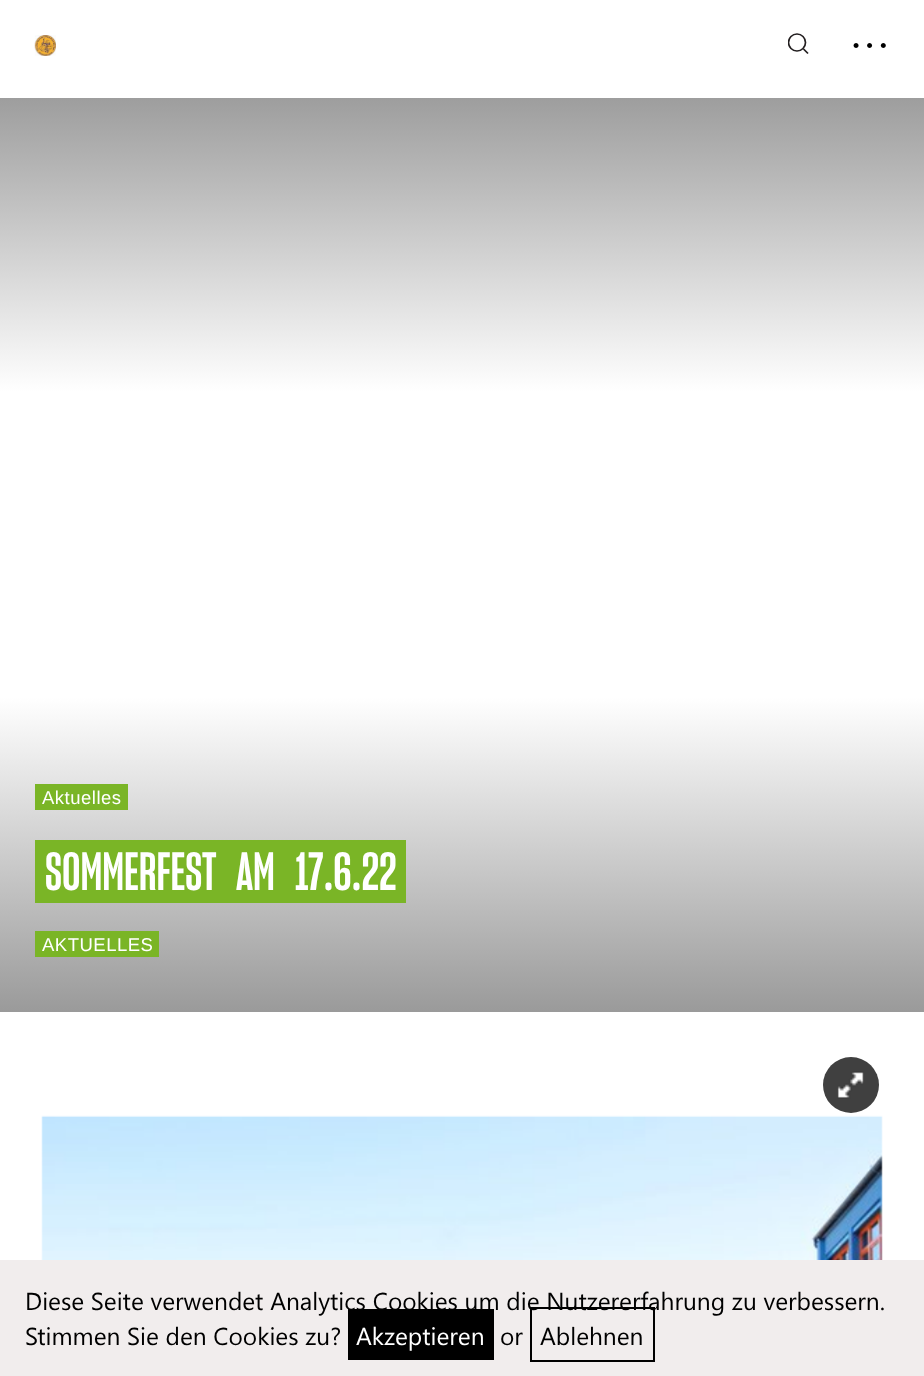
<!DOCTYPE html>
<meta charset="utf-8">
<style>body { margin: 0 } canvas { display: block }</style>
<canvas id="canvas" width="924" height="1376"></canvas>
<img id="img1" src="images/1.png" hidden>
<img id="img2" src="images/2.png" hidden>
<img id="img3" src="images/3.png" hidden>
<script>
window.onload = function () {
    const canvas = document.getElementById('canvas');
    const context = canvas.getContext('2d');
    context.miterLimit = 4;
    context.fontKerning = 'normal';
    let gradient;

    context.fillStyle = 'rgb(255, 255, 255)';
    context.fillRect(0, 0, 924, 1376);
    context.drawImage(document.getElementById('img1'), 34, 35, 22, 21);
    context.save();
    context.beginPath();
    context.rect(788, 33, 21, 21);
    context.clip();
    context.beginPath();
    context.arc(797, 42.5, 8.5, 0, 2 * Math.PI);
    context.strokeStyle = 'rgb(35, 31, 32)';
    context.lineWidth = 1.7;
    context.stroke();
    context.restore();
    context.beginPath();
    context.moveTo(803.5, 49);
    context.lineTo(808, 53.5);
    context.strokeStyle = 'rgb(35, 31, 32)';
    context.lineWidth = 1.7;
    context.stroke();
    gradient = context.createLinearGradient(462, 87, 462, 1012);
    gradient.addColorStop(0, 'rgb(154, 154, 154)');
    gradient.addColorStop(0.33, 'rgb(255, 255, 255)');
    gradient.addColorStop(0.66, 'rgb(255, 255, 255)');
    gradient.addColorStop(1, 'rgb(154, 154, 154)');
    context.fillStyle = gradient;
    context.fillRect(0, 98, 924, 914);
    context.fillStyle = 'rgb(122, 181, 38)';
    context.fillRect(35, 784, 93, 26);
    context.fillRect(35, 840, 371, 63);
    context.fillRect(35, 931, 124, 26);
    context.fillStyle = 'rgb(64, 64, 64)';
    context.beginPath();
    context.arc(851, 1085, 28, 0, 2 * Math.PI);
    context.fill();
    context.drawImage(document.getElementById('img2'), 837, 1071, 27, 28);
    context.drawImage(document.getElementById('img3'), 41, 1115, 842, 145);
    context.fillStyle = 'rgb(241, 237, 237)';
    context.fillRect(0, 1260, 924, 116);
    context.fillStyle = 'rgb(0, 0, 0)';
    context.fillRect(348, 1309, 146, 51);
    context.strokeStyle = 'rgb(0, 0, 0)';
    context.lineWidth = 2;
    context.strokeRect(531, 1308, 123, 53);
    context.font = '20px Segoe UI';
    context.fillText('• • •', 852, 52);
    context.letterSpacing = '0.5px';
    context.font = '18.5px Liberation Sans';
    context.fillStyle = 'rgb(255, 255, 255)';
    context.fillText('Aktuelles', 42, 804);
    context.letterSpacing = '0px';
    context.font = 'bold 52.5px "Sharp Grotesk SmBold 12"';
    context.fillText('SOMMERFEST', 45, 890);
    context.fillText('AM', 236, 890);
    context.fillText('17.6.22', 295, 890);
    context.letterSpacing = '0.5px';
    context.font = '18.5px Liberation Sans';
    context.fillText('AKTUELLES', 42, 951);
    context.letterSpacing = '0px';
    context.font = '24.5px Segoe UI';
    context.fillStyle = 'rgb(0, 0, 0)';
    context.fillText('Diese Seite verwendet Analytics Cookies um die Nutzererfahrung zu verbessern.', 25, 1310);
    context.fillText('Stimmen Sie den Cookies zu?', 25, 1345);
    context.fillStyle = 'rgb(255, 255, 255)';
    context.fillText('Akzeptieren', 356, 1345);
    context.fillStyle = 'rgb(0, 0, 0)';
    context.fillText('or', 500, 1345);
    context.fillText('Ablehnen', 540, 1345);
};
</script>
